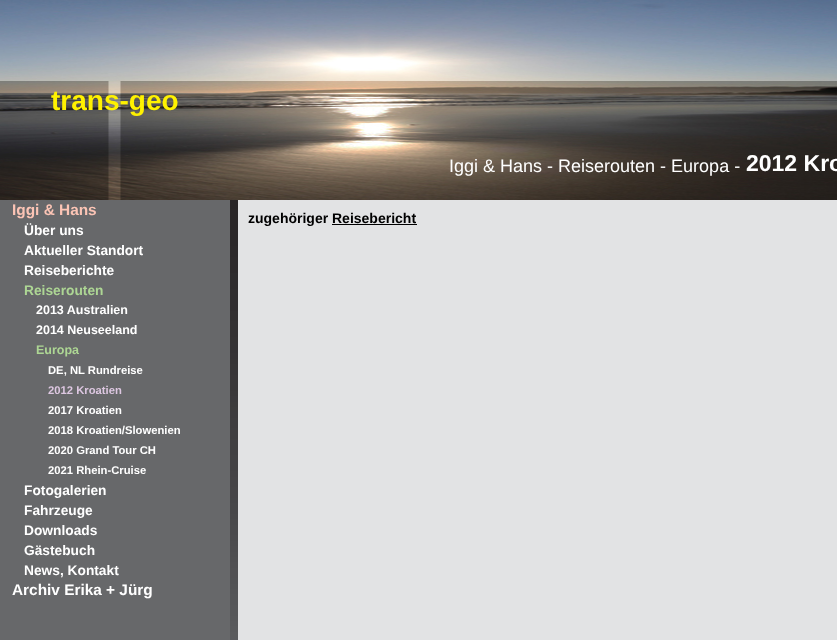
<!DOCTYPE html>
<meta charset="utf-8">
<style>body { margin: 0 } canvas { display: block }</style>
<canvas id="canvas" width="837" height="640"></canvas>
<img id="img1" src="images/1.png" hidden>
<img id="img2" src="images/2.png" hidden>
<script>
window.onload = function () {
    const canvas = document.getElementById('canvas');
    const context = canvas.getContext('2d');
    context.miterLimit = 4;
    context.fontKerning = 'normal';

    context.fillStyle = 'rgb(255, 255, 255)';
    context.fillRect(0, 0, 837, 640);
    context.drawImage(document.getElementById('img1'), 230, 200, 8, 440);
    context.drawImage(document.getElementById('img2'), 0, 0, 837, 200);
    context.fillStyle = 'rgb(103, 104, 106)';
    context.fillRect(0, 200, 230, 440);
    context.fillStyle = 'rgb(226, 227, 228)';
    context.fillRect(238, 200, 599, 440);
    context.fillStyle = 'rgb(0, 0, 0)';
    context.fillRect(332, 224, 85, 1);
    context.font = 'bold 28px Liberation Sans';
    context.fillStyle = 'rgb(255, 242, 0)';
    context.fillText('trans-geo', 51, 110);
    context.font = 'bold 15.4px Liberation Sans';
    context.fillStyle = 'rgb(251, 196, 181)';
    context.fillText('Iggi & Hans', 12, 215);
    context.font = 'bold 13.75px Liberation Sans';
    context.fillStyle = 'rgb(255, 255, 255)';
    context.fillText('Über uns', 24, 235);
    context.fillText('Aktueller Standort', 24, 255);
    context.fillText('Reiseberichte', 24, 275);
    context.fillStyle = 'rgb(173, 214, 148)';
    context.fillText('Reiserouten', 24, 295);
    context.font = 'bold 12.5px Liberation Sans';
    context.fillStyle = 'rgb(255, 255, 255)';
    context.fillText('2013 Australien', 36, 314);
    context.fillText('2014 Neuseeland', 36, 334);
    context.fillStyle = 'rgb(173, 214, 148)';
    context.fillText('Europa', 36, 354);
    context.font = 'bold 11.25px Liberation Sans';
    context.fillStyle = 'rgb(255, 255, 255)';
    context.fillText('DE, NL Rundreise', 48, 374);
    context.fillStyle = 'rgb(221, 199, 225)';
    context.fillText('2012 Kroatien', 48, 394);
    context.fillStyle = 'rgb(255, 255, 255)';
    context.fillText('2017 Kroatien', 48, 414);
    context.fillText('2018 Kroatien/Slowenien', 48, 434);
    context.fillText('2020 Grand Tour CH', 48, 454);
    context.fillText('2021 Rhein-Cruise', 48, 474);
    context.font = 'bold 13.75px Liberation Sans';
    context.fillText('Fotogalerien', 24, 495);
    context.fillText('Fahrzeuge', 24, 515);
    context.fillText('Downloads', 24, 535);
    context.fillText('Gästebuch', 24, 555);
    context.fillText('News, Kontakt', 24, 575);
    context.font = 'bold 15.4px Liberation Sans';
    context.fillText('Archiv Erika + Jürg', 12, 595);
    context.font = '18px Liberation Sans';
    context.fillText('Iggi & Hans - Reiserouten - Europa -', 449, 172);
    context.font = 'bold 23px Liberation Sans';
    context.fillText('2012 Kro', 746, 171);
    context.font = 'bold 14px Liberation Sans';
    context.fillStyle = 'rgb(0, 0, 0)';
    context.fillText('zugehöriger Reisebericht', 248, 223);
};
</script>
